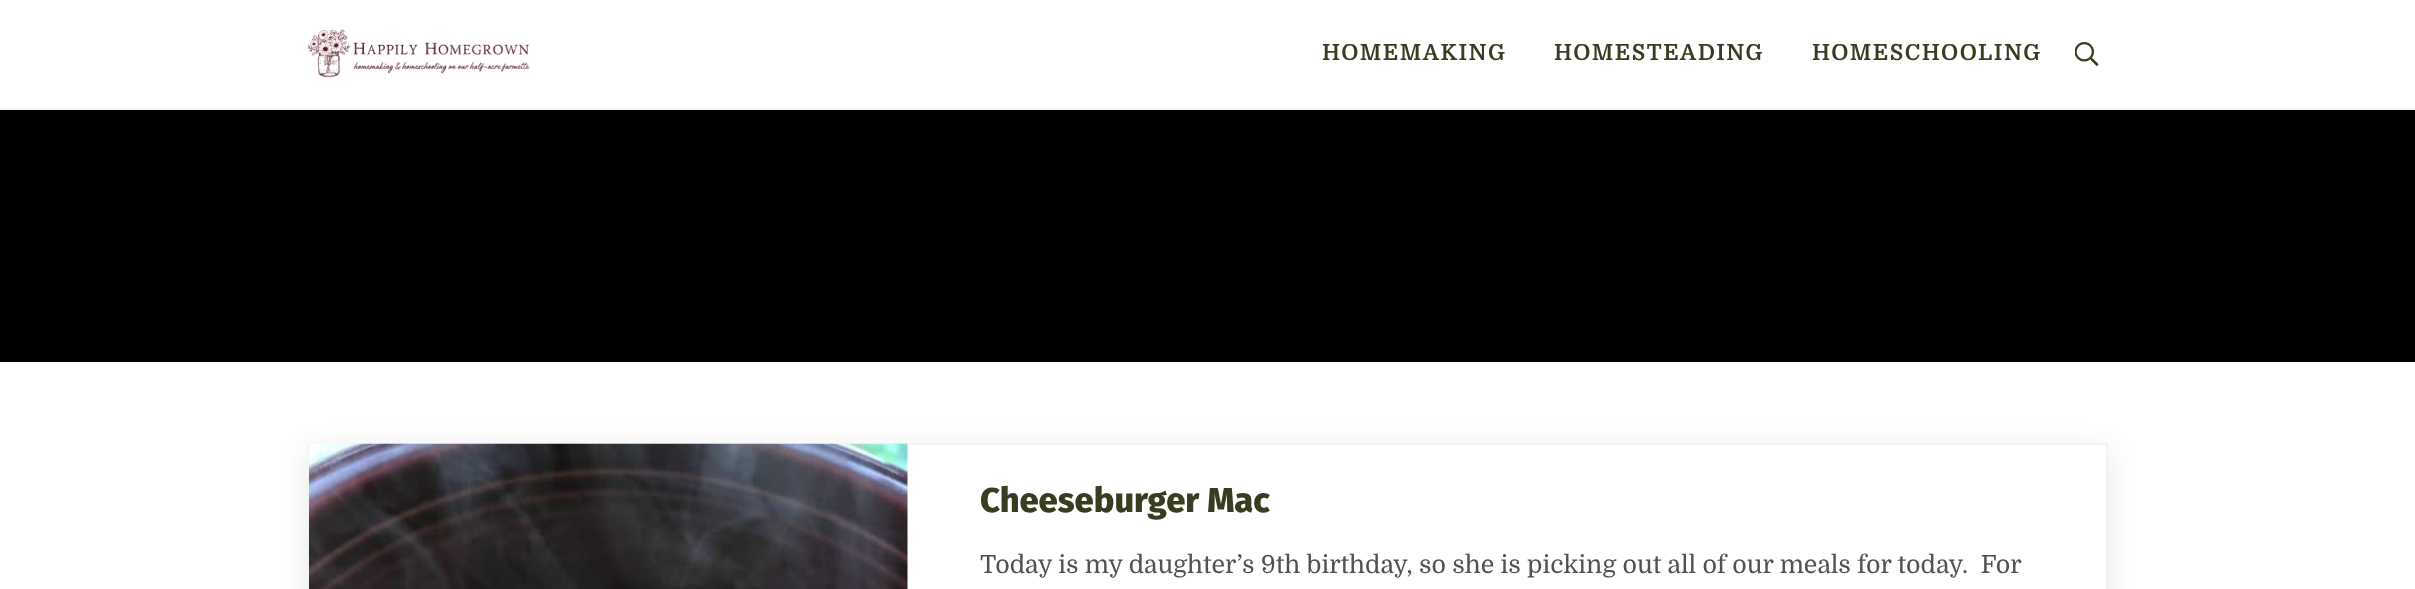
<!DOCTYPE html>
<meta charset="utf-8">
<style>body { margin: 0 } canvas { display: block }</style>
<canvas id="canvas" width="2415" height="589"></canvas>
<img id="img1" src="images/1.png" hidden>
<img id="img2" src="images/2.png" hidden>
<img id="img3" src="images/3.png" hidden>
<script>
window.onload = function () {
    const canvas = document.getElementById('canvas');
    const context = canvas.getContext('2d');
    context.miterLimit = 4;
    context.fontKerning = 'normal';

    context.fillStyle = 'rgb(255, 255, 255)';
    context.fillRect(0, 0, 2415, 589);
    context.fillStyle = 'rgb(243, 243, 244)';
    context.fillRect(0, 108, 2415, 2);
    context.drawImage(document.getElementById('img1'), 307, 29, 223, 49);
    context.drawImage(document.getElementById('img2'), 2075, 42, 24, 24);
    context.fillStyle = 'rgb(0, 0, 0)';
    context.fillRect(0, 110, 2415, 252);
    context.fillStyle = 'rgba(10, 20, 30, 0.1)';
    context.filter = 'blur(14px)';
    context.beginPath();
    context.rect(308, 450, 1800, 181);
    context.fill();
    context.filter = 'none';
    context.fillStyle = 'rgb(255, 255, 255)';
    context.fillRect(907, 445, 1199, 144);
    context.strokeStyle = 'rgb(243, 243, 244)';
    context.lineWidth = 2;
    context.strokeRect(309, 444, 1798, 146);
    context.drawImage(document.getElementById('img3'), 309, 443, 599, 146);
    context.letterSpacing = '1.5px';
    context.font = 'bold 22.1px Domine';
    context.fillStyle = 'rgb(55, 61, 32)';
    context.fillText('HOMEMAKING', 1322, 60);
    context.fillText('HOMESTEADING', 1554, 60);
    context.fillText('HOMESCHOOLING', 1812, 60);
    context.letterSpacing = '0px';
    context.font = '800 34.5px Fira Sans';
    context.fillText('Cheeseburger Mac', 980, 512);
    context.font = '24.85px Domine';
    context.fillStyle = 'rgb(82, 82, 82)';
    context.fillText('Today is my daughter’s 9th birthday, so she is picking out all of our meals for today.  For', 980, 573);
};
</script>
